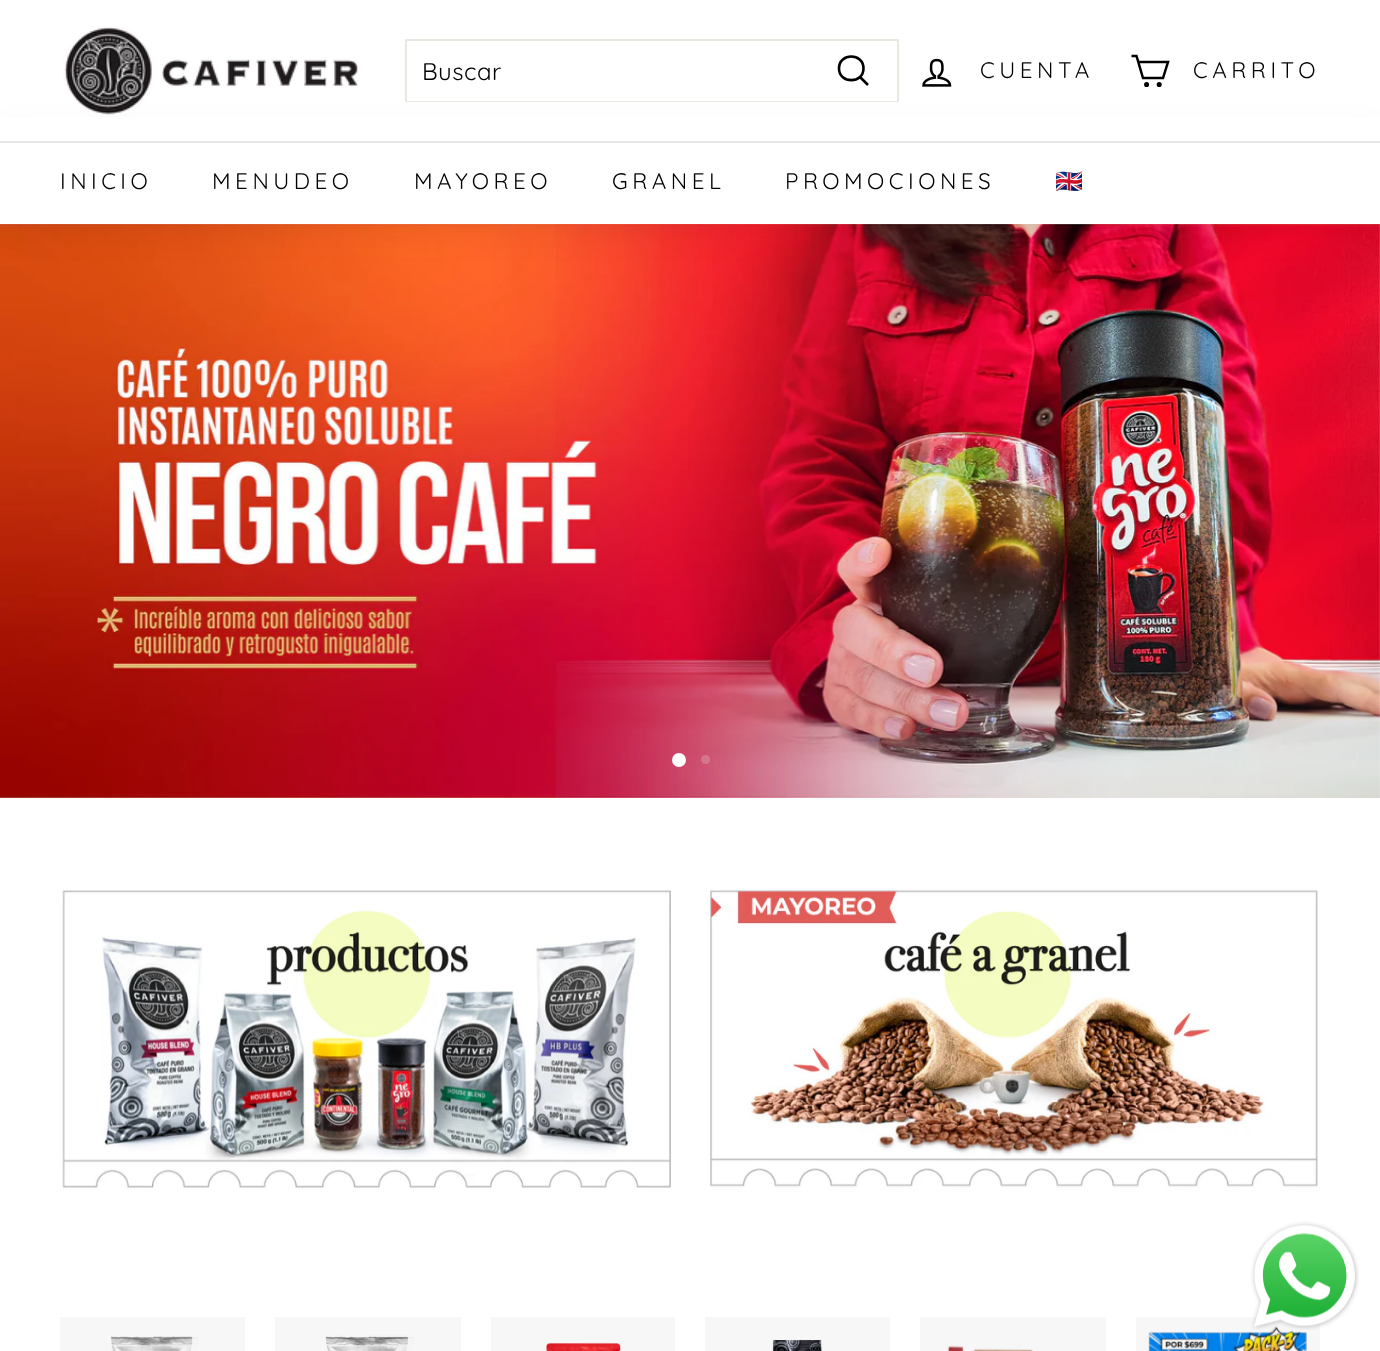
<!DOCTYPE html>
<meta charset="utf-8">
<style>body { margin: 0 } canvas { display: block }</style>
<canvas id="canvas" width="1380" height="1351"></canvas>
<img id="img1" src="images/3.png" hidden>
<img id="img2" src="images/1.png" hidden>
<img id="img3" src="images/2.png" hidden>
<img id="img4" src="images/4.png" hidden>
<img id="img5" src="images/5.png" hidden>
<img id="img6" src="images/6.png" hidden>
<img id="img7" src="images/7.png" hidden>
<img id="img8" src="images/8.png" hidden>
<img id="img9" src="images/9.png" hidden>
<img id="img10" src="images/10.png" hidden>
<img id="img11" src="images/11.png" hidden>
<img id="img12" src="images/12.png" hidden>
<script>
window.onload = function () {
    const canvas = document.getElementById('canvas');
    const context = canvas.getContext('2d');
    context.miterLimit = 4;
    context.fontKerning = 'normal';

    context.fillStyle = 'rgb(255, 255, 255)';
    context.fillRect(0, 0, 1380, 1351);
    context.fillStyle = 'rgb(247, 247, 247)';
    context.fillRect(1136, 1317, 184, 34);
    context.fillRect(920, 1317, 186, 34);
    context.fillRect(705, 1317, 185, 34);
    context.fillRect(491, 1317, 184, 34);
    context.fillRect(275, 1317, 186, 34);
    context.fillRect(60, 1317, 185, 34);
    context.drawImage(document.getElementById('img1'), 0, 224, 1380, 574);
    context.fillStyle = 'rgba(0, 0, 0, 0.1)';
    context.filter = 'blur(19px)';
    context.beginPath();
    context.rect(0, 141, 1380, 83);
    context.fill();
    context.filter = 'none';
    context.fillStyle = 'rgb(255, 255, 255)';
    context.fillRect(0, 117, 1380, 24);
    context.drawImage(document.getElementById('img2'), 63, 26, 295, 91);
    context.strokeStyle = 'rgb(232, 232, 225)';
    context.lineWidth = 2;
    context.strokeRect(406, 40, 492, 61);
    context.fillRect(407, 100, 490, 1);
    context.beginPath();
    context.moveTo(863.5, 68.5);
    context.bezierCurveTo(863.5, 84, 839, 84, 839, 68.5);
    context.bezierCurveTo(839, 52.5, 863.5, 52.5, 863.5, 68.5);
    context.closePath();
    context.moveTo(868, 85);
    context.lineTo(860, 77);
    context.strokeStyle = 'rgb(0, 0, 0)';
    context.lineWidth = 2.6;
    context.stroke();
    context.drawImage(document.getElementById('img3'), 922, 58, 30, 29);
    context.beginPath();
    context.moveTo(1138.5, 62);
    context.lineTo(1168, 62);
    context.lineTo(1163, 78);
    context.lineTo(1143, 78);
    context.lineTo(1136.5, 56);
    context.lineTo(1131.5, 56);
    context.lineWidth = 2.5;
    context.stroke();
    context.beginPath();
    context.arc(1146.6, 84.5, 1.3, 0, 2 * Math.PI);
    context.stroke();
    context.beginPath();
    context.arc(1159.2, 84.5, 1.3, 0, 2 * Math.PI);
    context.stroke();
    context.fillRect(0, 143, 1380, 81);
    context.fillStyle = 'rgb(230, 230, 230)';
    context.fillRect(0, 141, 1380, 2);
    context.fillStyle = 'rgb(255, 255, 255)';
    context.beginPath();
    context.arc(679, 760, 7, 0, 2 * Math.PI);
    context.fill();
    context.fillStyle = 'rgba(255, 255, 255, 0.2)';
    context.beginPath();
    context.arc(705.5, 759.5, 4.5, 0, 2 * Math.PI);
    context.fill();
    context.drawImage(document.getElementById('img4'), 62, 890, 609, 299);
    context.drawImage(document.getElementById('img5'), 707, 888, 611, 300);
    context.drawImage(document.getElementById('img6'), 110, 1336, 89, 15);
    context.drawImage(document.getElementById('img7'), 325, 1335, 89, 16);
    context.drawImage(document.getElementById('img8'), 546, 1342, 76, 9);
    context.drawImage(document.getElementById('img9'), 772, 1339, 51, 12);
    context.drawImage(document.getElementById('img10'), 947, 1345, 86, 6);
    context.drawImage(document.getElementById('img11'), 1148, 1326, 159, 25);
    context.drawImage(document.getElementById('img12'), 1251, 1221, 108, 109);
    context.letterSpacing = '0.5px';
    context.font = '24px Quicksand';
    context.fillStyle = 'rgb(0, 0, 0)';
    context.fillText('Buscar', 422, 80);
    context.letterSpacing = '4.5px';
    context.font = '22.5px Quicksand';
    context.fillText('CUENTA', 980, 78);
    context.fillText('CARRITO', 1193, 78);
    context.fillText('INICIO', 60, 189);
    context.fillText('MENUDEO', 212, 189);
    context.fillText('MAYOREO', 414, 189);
    context.fillText('GRANEL', 612, 189);
    context.fillText('PROMOCIONES', 785, 189);
    context.font = '22.5px Noto Color Emoji';
    context.fillText('🇬🇧', 1055, 189);
};
</script>
